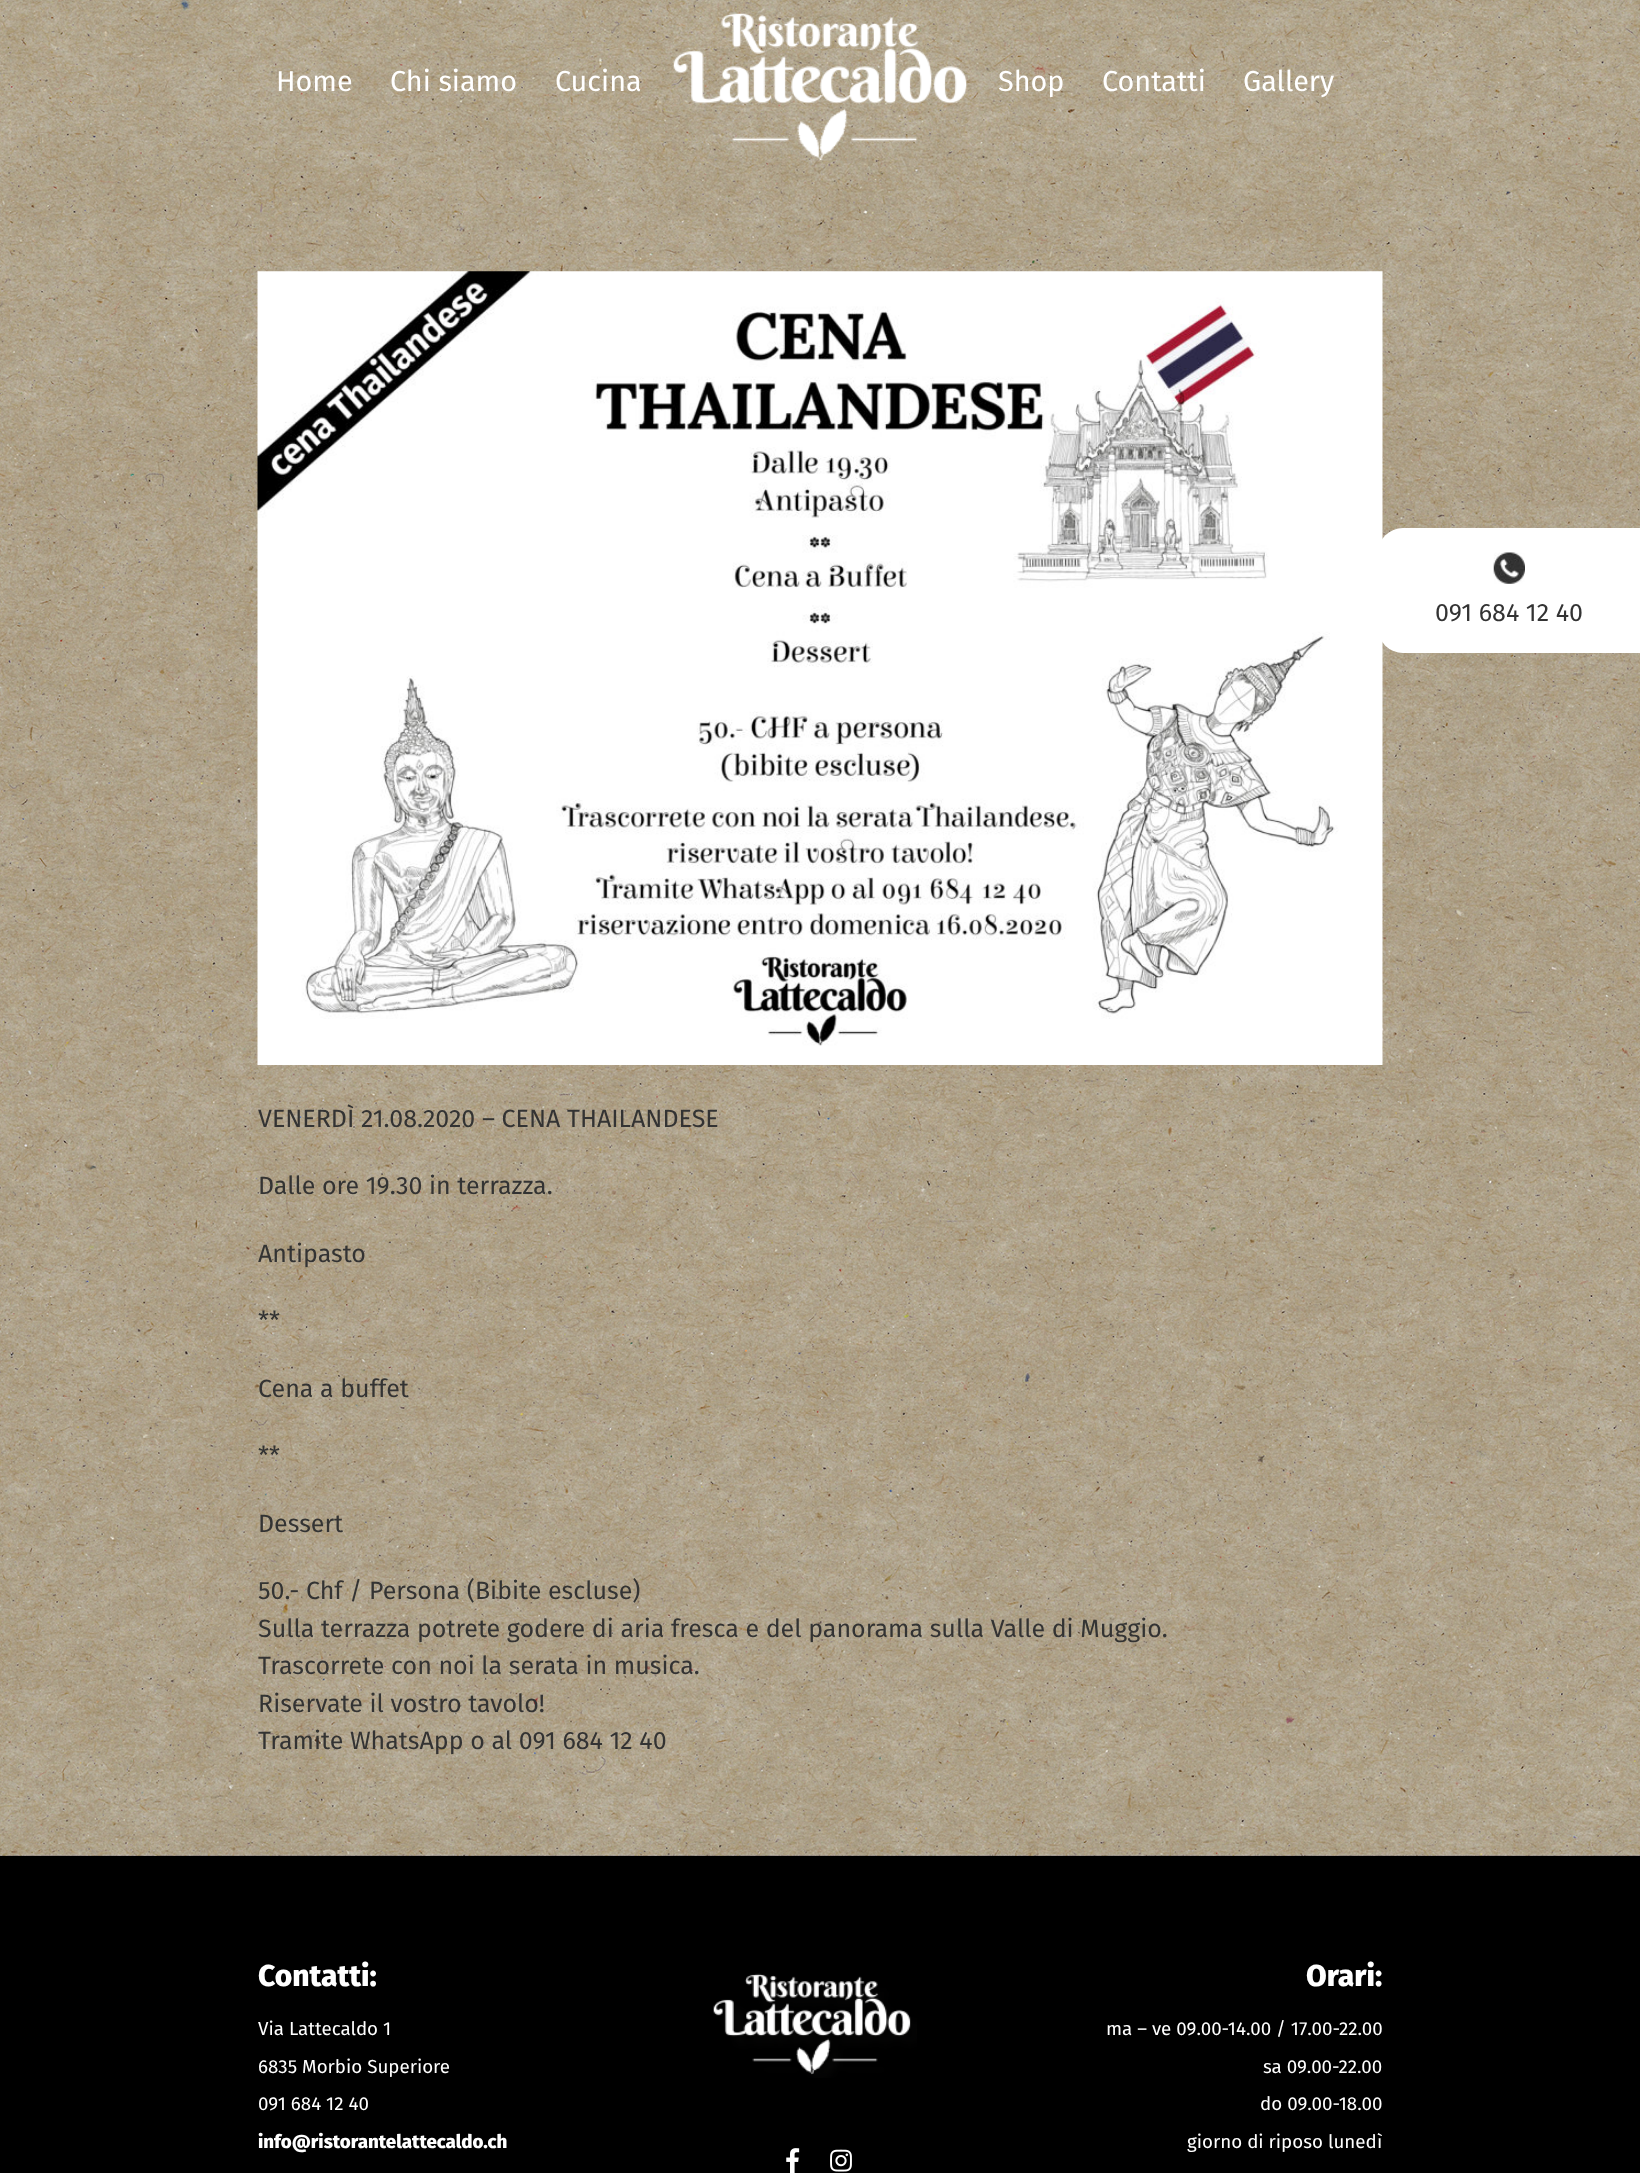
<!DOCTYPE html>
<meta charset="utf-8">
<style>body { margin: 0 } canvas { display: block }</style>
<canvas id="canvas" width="1640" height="2173"></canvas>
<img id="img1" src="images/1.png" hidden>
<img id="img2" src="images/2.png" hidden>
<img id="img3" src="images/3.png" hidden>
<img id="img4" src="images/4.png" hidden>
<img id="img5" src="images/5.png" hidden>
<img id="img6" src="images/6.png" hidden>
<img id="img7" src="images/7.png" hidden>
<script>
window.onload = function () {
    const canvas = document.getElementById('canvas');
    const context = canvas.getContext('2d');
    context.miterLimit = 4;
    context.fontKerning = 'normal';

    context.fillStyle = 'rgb(255, 255, 255)';
    context.fillRect(0, 0, 1640, 2173);
    context.drawImage(document.getElementById('img1'), 0, 0, 1640, 1856);
    context.drawImage(document.getElementById('img2'), 673, 13, 294, 147);
    context.drawImage(document.getElementById('img3'), 257, 271, 1126, 794);
    context.fillStyle = 'rgb(0, 0, 0)';
    context.fillRect(0, 1856, 1640, 317);
    context.drawImage(document.getElementById('img4'), 713, 1973, 204, 105);
    context.drawImage(document.getElementById('img5'), 786, 2148, 14, 25);
    context.drawImage(document.getElementById('img6'), 830, 2149, 22, 23);
    context.fillStyle = 'rgb(255, 255, 255)';
    context.beginPath();
    context.roundRect(1378, 528, 262, 125, [25, 0, 0, 25]);
    context.fill();
    context.drawImage(document.getElementById('img7'), 1493, 552, 32, 32);
    context.font = '28.75px Fira Sans';
    context.fillText('Home', 276, 91);
    context.fillText('Chi siamo', 390, 91);
    context.fillText('Cucina', 555, 91);
    context.fillText('Shop', 998, 91);
    context.fillText('Contatti', 1102, 91);
    context.fillText('Gallery', 1243, 91);
    context.font = '25px Fira Sans';
    context.fillStyle = 'rgb(51, 51, 51)';
    context.fillText('VENERDÌ 21.08.2020 – CENA THAILANDESE', 258, 1127);
    context.fillText('Dalle ore 19.30 in terrazza.', 258, 1194);
    context.fillText('Antipasto', 258, 1262);
    context.fillText('**', 258, 1329);
    context.fillText('Cena a buffet', 258, 1397);
    context.fillText('**', 258, 1464);
    context.fillText('Dessert', 258, 1532);
    context.fillText('50.- Chf / Persona (Bibite escluse)', 258, 1599);
    context.fillText('Sulla terrazza potrete godere di aria fresca e del panorama sulla Valle di Muggio.', 258, 1637);
    context.fillText('Trascorrete con noi la serata in musica.', 258, 1674);
    context.fillText('Riservate il vostro tavolo!', 258, 1712);
    context.fillText('Tramite WhatsApp o al 091 684 12 40', 258, 1749);
    context.font = '800 30px Fira Sans';
    context.fillStyle = 'rgb(255, 255, 255)';
    context.fillText('Contatti:', 258, 1986);
    context.font = '18.75px Fira Sans';
    context.fillText('Via Lattecaldo 1', 258, 2035);
    context.fillText('6835 Morbio Superiore', 258, 2073);
    context.fillText('091 684 12 40', 258, 2110);
    context.font = '800 18.75px Fira Sans';
    context.fillText('info@ristorantelattecaldo.ch', 258, 2148);
    context.font = '800 30px Fira Sans';
    context.fillText('Orari:', 1306, 1986);
    context.font = '18.75px Fira Sans';
    context.fillText('ma – ve 09.00-14.00 / 17.00-22.00', 1106, 2035);
    context.fillText('sa 09.00-22.00', 1263, 2073);
    context.fillText('do 09.00-18.00', 1260, 2110);
    context.fillText('giorno di riposo lunedì', 1187, 2148);
    context.font = '25px Fira Sans';
    context.fillStyle = 'rgb(51, 51, 51)';
    context.fillText('091 684 12 40', 1435, 621);
};
</script>
